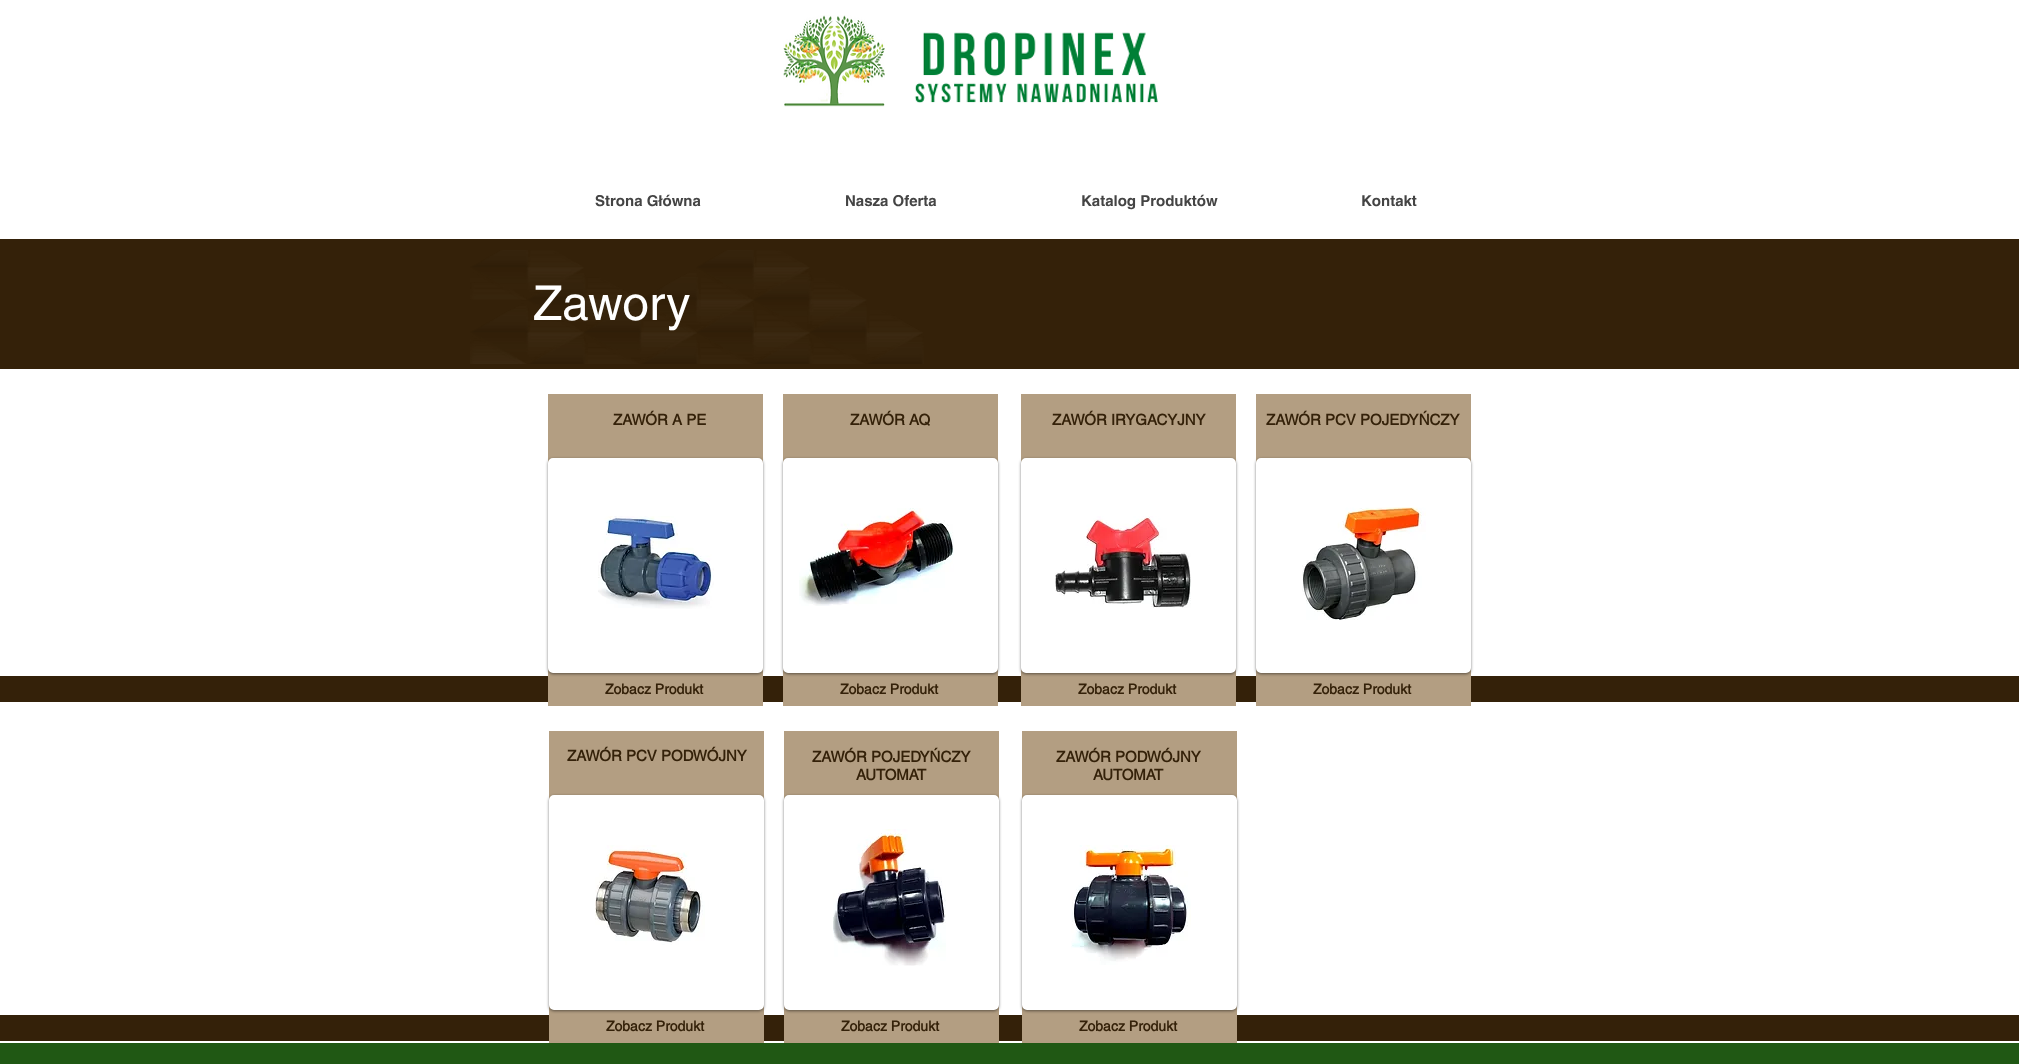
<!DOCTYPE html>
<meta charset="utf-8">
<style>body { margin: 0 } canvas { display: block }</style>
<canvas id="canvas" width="2019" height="1064"></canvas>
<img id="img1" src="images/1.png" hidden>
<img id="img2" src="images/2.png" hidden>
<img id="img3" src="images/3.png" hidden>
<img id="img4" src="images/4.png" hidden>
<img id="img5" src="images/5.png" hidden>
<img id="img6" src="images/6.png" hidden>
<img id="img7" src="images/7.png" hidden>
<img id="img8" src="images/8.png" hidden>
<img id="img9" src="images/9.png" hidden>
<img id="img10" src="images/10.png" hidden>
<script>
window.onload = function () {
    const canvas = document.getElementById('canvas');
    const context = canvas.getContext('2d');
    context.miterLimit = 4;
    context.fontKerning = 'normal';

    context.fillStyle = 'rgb(255, 255, 255)';
    context.fillRect(0, 0, 2019, 1064);
    context.drawImage(document.getElementById('img1'), 783, 15, 102, 92);
    context.drawImage(document.getElementById('img2'), 914, 32, 244, 71);
    context.fillStyle = 'rgb(52, 33, 9)';
    context.fillRect(0, 239, 2019, 130);
    context.drawImage(document.getElementById('img3'), 470, 250, 454, 114);
    context.fillRect(0, 676, 2019, 26);
    context.fillStyle = 'rgb(179, 158, 130)';
    context.fillRect(548, 394, 215, 312);
    context.fillStyle = 'rgba(0, 0, 0, 0.5)';
    context.filter = 'blur(1.5px)';
    context.beginPath();
    context.roundRect(548, 459, 215, 215, 5);
    context.fill();
    context.filter = 'none';
    context.fillStyle = 'rgb(255, 255, 255)';
    context.beginPath();
    context.roundRect(549, 459, 213, 213, 4);
    context.fill();
    context.strokeStyle = 'rgb(255, 255, 255)';
    context.lineWidth = 2;
    context.stroke();
    context.drawImage(document.getElementById('img4'), 598, 516, 116, 93);
    context.fillStyle = 'rgb(179, 158, 130)';
    context.fillRect(783, 394, 215, 312);
    context.fillStyle = 'rgba(0, 0, 0, 0.5)';
    context.filter = 'blur(1.5px)';
    context.beginPath();
    context.roundRect(783, 459, 215, 215, 5);
    context.fill();
    context.filter = 'none';
    context.fillStyle = 'rgb(255, 255, 255)';
    context.beginPath();
    context.roundRect(784, 459, 213, 213, 4);
    context.fill();
    context.stroke();
    context.drawImage(document.getElementById('img5'), 799, 508, 155, 98);
    context.fillStyle = 'rgb(179, 158, 130)';
    context.fillRect(1021, 394, 215, 312);
    context.fillStyle = 'rgba(0, 0, 0, 0.5)';
    context.filter = 'blur(1.5px)';
    context.beginPath();
    context.roundRect(1021, 459, 215, 215, 5);
    context.fill();
    context.filter = 'none';
    context.fillStyle = 'rgb(255, 255, 255)';
    context.beginPath();
    context.roundRect(1022, 459, 213, 213, 4);
    context.fill();
    context.stroke();
    context.drawImage(document.getElementById('img6'), 1055, 516, 136, 92);
    context.fillStyle = 'rgb(179, 158, 130)';
    context.fillRect(1256, 394, 215, 312);
    context.fillStyle = 'rgba(0, 0, 0, 0.5)';
    context.filter = 'blur(1.5px)';
    context.beginPath();
    context.roundRect(1256, 459, 215, 215, 5);
    context.fill();
    context.filter = 'none';
    context.fillStyle = 'rgb(255, 255, 255)';
    context.beginPath();
    context.roundRect(1257, 459, 213, 213, 4);
    context.fill();
    context.stroke();
    context.drawImage(document.getElementById('img7'), 1302, 507, 124, 113);
    context.fillStyle = 'rgb(52, 33, 9)';
    context.fillRect(0, 1015, 2019, 26);
    context.fillStyle = 'rgb(179, 158, 130)';
    context.fillRect(549, 731, 215, 312);
    context.fillStyle = 'rgba(0, 0, 0, 0.5)';
    context.filter = 'blur(1.5px)';
    context.beginPath();
    context.roundRect(549, 796, 215, 215, 5);
    context.fill();
    context.filter = 'none';
    context.fillStyle = 'rgb(255, 255, 255)';
    context.beginPath();
    context.roundRect(550, 796, 213, 213, 4);
    context.fill();
    context.stroke();
    context.drawImage(document.getElementById('img8'), 595, 845, 110, 100);
    context.fillStyle = 'rgb(179, 158, 130)';
    context.fillRect(784, 731, 215, 312);
    context.fillStyle = 'rgba(0, 0, 0, 0.5)';
    context.filter = 'blur(1.5px)';
    context.beginPath();
    context.roundRect(784, 796, 215, 215, 5);
    context.fill();
    context.filter = 'none';
    context.fillStyle = 'rgb(255, 255, 255)';
    context.beginPath();
    context.roundRect(785, 796, 213, 213, 4);
    context.fill();
    context.stroke();
    context.drawImage(document.getElementById('img9'), 833, 829, 113, 137);
    context.fillStyle = 'rgb(179, 158, 130)';
    context.fillRect(1022, 731, 215, 312);
    context.fillStyle = 'rgba(0, 0, 0, 0.5)';
    context.filter = 'blur(1.5px)';
    context.beginPath();
    context.roundRect(1022, 796, 215, 215, 5);
    context.fill();
    context.filter = 'none';
    context.fillStyle = 'rgb(255, 255, 255)';
    context.beginPath();
    context.roundRect(1023, 796, 213, 213, 4);
    context.fill();
    context.stroke();
    context.drawImage(document.getElementById('img10'), 1071, 845, 120, 120);
    context.fillStyle = 'rgb(32, 88, 20)';
    context.fillRect(0, 1043, 2019, 21);
    context.font = 'bold 15px helvetica';
    context.fillStyle = 'rgb(68, 68, 68)';
    context.fillText('Strona Główna', 595, 206);
    context.fillText('Nasza Oferta', 845, 206);
    context.fillText('Katalog Produktów', 1081, 206);
    context.fillText('Kontakt', 1361, 206);
    context.font = '48px helvetica';
    context.fillStyle = 'rgb(255, 255, 255)';
    context.fillText('Zawory', 533, 320);
    context.font = 'bold 15px "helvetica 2"';
    context.fillStyle = 'rgb(52, 33, 9)';
    context.fillText('ZAWÓR A PE', 613, 425);
    context.font = 'bold 14px "helvetica 2"';
    context.fillText('Zobacz Produkt', 605, 694);
    context.font = 'bold 15px "helvetica 2"';
    context.fillText('ZAWÓR AQ', 850, 425);
    context.font = 'bold 14px "helvetica 2"';
    context.fillText('Zobacz Produkt', 840, 694);
    context.font = 'bold 15px "helvetica 2"';
    context.fillText('ZAWÓR IRYGACYJNY', 1052, 425);
    context.font = 'bold 14px "helvetica 2"';
    context.fillText('Zobacz Produkt', 1078, 694);
    context.font = 'bold 15px "helvetica 2"';
    context.fillText('ZAWÓR PCV POJEDYŃCZY', 1266, 425);
    context.font = 'bold 14px "helvetica 2"';
    context.fillText('Zobacz Produkt', 1313, 694);
    context.font = 'bold 15px "helvetica 2"';
    context.fillText('ZAWÓR PCV PODWÓJNY', 567, 761);
    context.font = 'bold 14px "helvetica 2"';
    context.fillText('Zobacz Produkt', 606, 1031);
    context.font = 'bold 15px "helvetica 2"';
    context.fillText('ZAWÓR POJEDYŃCZY', 812, 762);
    context.fillText('AUTOMAT', 856, 780);
    context.font = 'bold 14px "helvetica 2"';
    context.fillText('Zobacz Produkt', 841, 1031);
    context.font = 'bold 15px "helvetica 2"';
    context.fillText('ZAWÓR PODWÓJNY', 1056, 762);
    context.fillText('AUTOMAT', 1093, 780);
    context.font = 'bold 14px "helvetica 2"';
    context.fillText('Zobacz Produkt', 1079, 1031);
};
</script>
